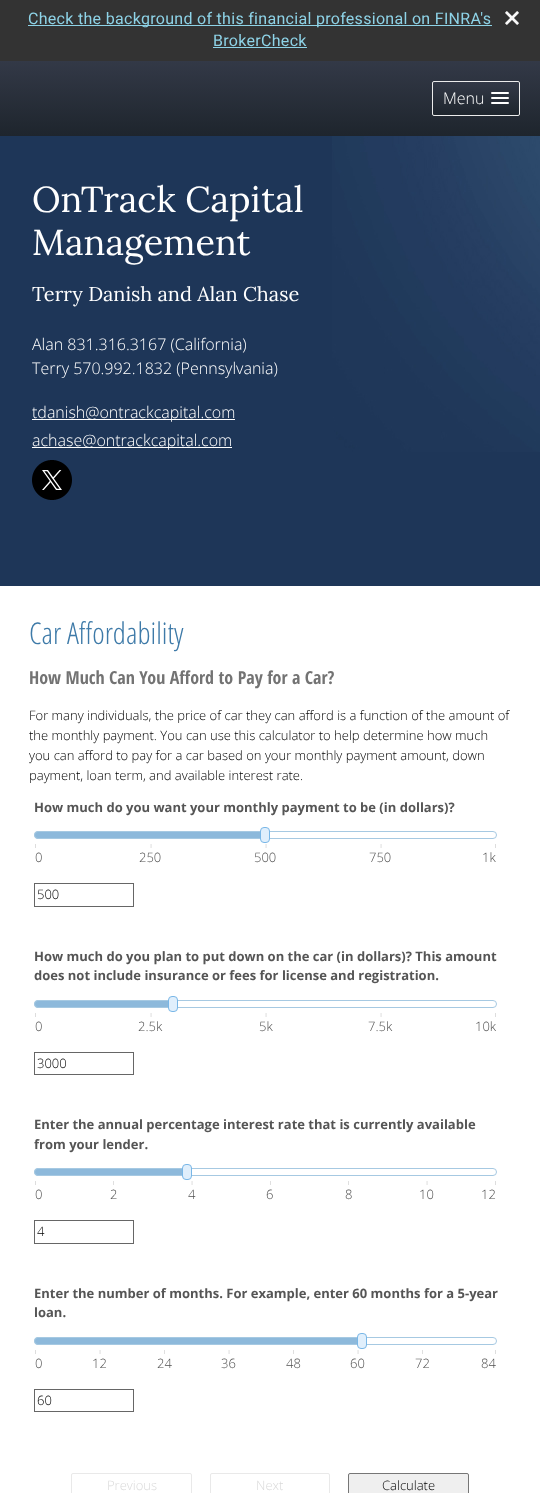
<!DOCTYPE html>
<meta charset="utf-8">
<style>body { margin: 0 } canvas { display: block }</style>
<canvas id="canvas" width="540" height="1493"></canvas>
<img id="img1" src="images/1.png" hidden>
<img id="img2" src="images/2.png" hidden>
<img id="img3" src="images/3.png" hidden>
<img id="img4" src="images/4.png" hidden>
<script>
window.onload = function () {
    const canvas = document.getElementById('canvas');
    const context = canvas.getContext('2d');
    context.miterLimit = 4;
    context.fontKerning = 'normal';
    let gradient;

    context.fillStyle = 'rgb(255, 255, 255)';
    context.fillRect(0, 0, 540, 1493);
    context.fillStyle = 'rgb(51, 51, 51)';
    context.fillRect(0, 0, 540, 61);
    context.fillStyle = 'rgb(142, 211, 231)';
    context.fillRect(28, 25, 464, 1);
    context.drawImage(document.getElementById('img1'), 505, 11, 14, 14);
    context.fillRect(213, 47, 94, 1);
    gradient = context.createLinearGradient(270, 61, 270, 136);
    gradient.addColorStop(0, 'rgb(51, 57, 71)');
    gradient.addColorStop(1, 'rgb(30, 37, 45)');
    context.fillStyle = gradient;
    context.fillRect(0, 61, 540, 75);
    context.save();
    context.beginPath();
    context.roundRect(432, 81, 88, 35, 2);
    context.clip();
    gradient = context.createLinearGradient(476, 82, 476, 115);
    gradient.addColorStop(0, 'rgb(51, 57, 71)');
    gradient.addColorStop(1, 'rgb(30, 37, 45)');
    context.fillStyle = gradient;
    context.fillRect(432, 82, 88, 33);
    context.restore();
    context.beginPath();
    context.roundRect(432.5, 81.5, 87, 34, 1.5);
    context.strokeStyle = 'rgb(236, 236, 236)';
    context.stroke();
    context.fillStyle = 'rgb(255, 255, 255)';
    context.beginPath();
    context.roundRect(491, 92, 18, 2, 1);
    context.fill();
    context.beginPath();
    context.roundRect(491, 97, 18, 2, 1);
    context.fill();
    context.beginPath();
    context.roundRect(491, 102, 18, 2, 1);
    context.fill();
    context.fillStyle = 'rgb(30, 54, 88)';
    context.fillRect(0, 136, 540, 450);
    context.drawImage(document.getElementById('img2'), 332, 136, 208, 316);
    context.fillStyle = 'rgb(255, 255, 255)';
    context.fillRect(32, 419, 203, 1);
    context.fillRect(32, 447, 200, 1);
    context.drawImage(document.getElementById('img3'), 32, 460, 40, 40);
    context.beginPath();
    context.roundRect(34.5, 831.5, 462, 7, 3.5);
    context.strokeStyle = 'rgb(166, 201, 226)';
    context.stroke();
    context.fillStyle = 'rgb(141, 185, 219)';
    context.beginPath();
    context.roundRect(34.5, 831.5, 229, 7, 3.5);
    context.fill();
    context.stroke();
    context.fillStyle = 'rgb(224, 239, 252)';
    context.beginPath();
    context.roundRect(260.5, 827.5, 9, 15, 3.5);
    context.fill();
    context.strokeStyle = 'rgb(121, 183, 231)';
    context.stroke();
    context.fillStyle = 'rgb(221, 221, 221)';
    context.fillRect(35, 844, 1, 4);
    context.drawImage(document.getElementById('img4'), 150, 844, 2, 4);
    context.drawImage(document.getElementById('img4'), 265, 844, 2, 4);
    context.drawImage(document.getElementById('img4'), 380, 844, 2, 4);
    context.fillRect(495, 844, 1, 4);
    context.strokeStyle = 'rgb(102, 102, 102)';
    context.strokeRect(34.5, 883.5, 99, 23);
    context.beginPath();
    context.roundRect(34.5, 1000.5, 462, 7, 3.5);
    context.strokeStyle = 'rgb(166, 201, 226)';
    context.stroke();
    context.fillStyle = 'rgb(141, 185, 219)';
    context.beginPath();
    context.roundRect(34.5, 1000.5, 137, 7, 3.5);
    context.fill();
    context.stroke();
    context.fillStyle = 'rgb(224, 239, 252)';
    context.beginPath();
    context.roundRect(168.5, 996.5, 9, 15, 3.5);
    context.fill();
    context.strokeStyle = 'rgb(121, 183, 231)';
    context.stroke();
    context.fillStyle = 'rgb(221, 221, 221)';
    context.fillRect(35, 1013, 1, 4);
    context.drawImage(document.getElementById('img4'), 150, 1013, 2, 4);
    context.drawImage(document.getElementById('img4'), 265, 1013, 2, 4);
    context.drawImage(document.getElementById('img4'), 380, 1013, 2, 4);
    context.fillRect(495, 1013, 1, 4);
    context.strokeStyle = 'rgb(102, 102, 102)';
    context.strokeRect(34.5, 1052.5, 99, 22);
    context.beginPath();
    context.roundRect(34.5, 1168.5, 462, 7, 3.5);
    context.strokeStyle = 'rgb(166, 201, 226)';
    context.stroke();
    context.fillStyle = 'rgb(141, 185, 219)';
    context.beginPath();
    context.roundRect(34.5, 1168.5, 151, 7, 3.5);
    context.fill();
    context.stroke();
    context.fillStyle = 'rgb(224, 239, 252)';
    context.beginPath();
    context.roundRect(182.5, 1164.5, 9, 15, 3.5);
    context.fill();
    context.strokeStyle = 'rgb(121, 183, 231)';
    context.stroke();
    context.fillStyle = 'rgb(221, 221, 221)';
    context.fillRect(35, 1181, 1, 4);
    context.fillStyle = 'rgb(223, 223, 223)';
    context.fillRect(113, 1181, 1, 4);
    context.drawImage(document.getElementById('img4'), 191, 1181, 2, 4);
    context.fillRect(270, 1181, 1, 4);
    context.fillRect(348, 1181, 1, 4);
    context.drawImage(document.getElementById('img4'), 426, 1181, 2, 4);
    context.fillStyle = 'rgb(221, 221, 221)';
    context.fillRect(495, 1181, 1, 4);
    context.strokeStyle = 'rgb(102, 102, 102)';
    context.strokeRect(34.5, 1220.5, 99, 23);
    context.beginPath();
    context.roundRect(34.5, 1337.5, 462, 7, 3.5);
    context.strokeStyle = 'rgb(166, 201, 226)';
    context.stroke();
    context.fillStyle = 'rgb(141, 185, 219)';
    context.beginPath();
    context.roundRect(34.5, 1337.5, 326, 7, 3.5);
    context.fill();
    context.stroke();
    context.fillStyle = 'rgb(224, 239, 252)';
    context.beginPath();
    context.roundRect(357.5, 1333.5, 9, 15, 3.5);
    context.fill();
    context.strokeStyle = 'rgb(121, 183, 231)';
    context.stroke();
    context.fillStyle = 'rgb(221, 221, 221)';
    context.fillRect(35, 1350, 1, 4);
    context.drawImage(document.getElementById('img4'), 99, 1350, 2, 4);
    context.fillStyle = 'rgb(223, 223, 223)';
    context.fillRect(164, 1350, 1, 4);
    context.drawImage(document.getElementById('img4'), 228, 1350, 2, 4);
    context.fillRect(293, 1350, 1, 4);
    context.drawImage(document.getElementById('img4'), 357, 1350, 2, 4);
    context.fillRect(422, 1350, 1, 4);
    context.fillStyle = 'rgb(221, 221, 221)';
    context.fillRect(495, 1350, 1, 4);
    context.strokeStyle = 'rgb(102, 102, 102)';
    context.strokeRect(34.5, 1389.5, 99, 22);
    context.beginPath();
    context.roundRect(71.5, 1473.5, 120, 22, 1.5);
    context.strokeStyle = 'rgb(233, 233, 233)';
    context.stroke();
    context.beginPath();
    context.roundRect(210.5, 1473.5, 119, 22, 1.5);
    context.stroke();
    context.fillStyle = 'rgb(239, 239, 239)';
    context.beginPath();
    context.roundRect(348.5, 1473.5, 120, 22, 1.5);
    context.fill();
    context.strokeStyle = 'rgb(118, 118, 118)';
    context.stroke();
    context.letterSpacing = '0.3px';
    context.font = '16px Roboto';
    context.fillStyle = 'rgb(142, 211, 231)';
    context.fillText('Check the background of this financial professional on FINRA\'s', 28, 24);
    context.fillText('BrokerCheck', 213, 46);
    context.letterSpacing = '0px';
    context.font = '300 16px Open Sans';
    context.fillStyle = 'rgb(255, 255, 255)';
    context.fillText('Menu', 443, 104);
    context.font = '36px Lora';
    context.fillText('OnTrack Capital', 32, 212);
    context.fillText('Management', 32, 255);
    context.font = '20px Lora';
    context.fillText('Terry Danish and Alan Chase', 32, 301);
    context.font = '300 16px Open Sans';
    context.fillText('Alan 831.316.3167 (California)', 32, 350);
    context.fillText('Terry 570.992.1832 (Pennsylvania)', 32, 374);
    context.fillText('tdanish@ontrackcapital.com', 32, 418);
    context.fillText('achase@ontrackcapital.com', 32, 446);
    context.font = '300 30px Open Sans Condensed';
    context.fillStyle = 'rgb(62, 122, 168)';
    context.fillText('Car Affordability', 29, 644);
    context.font = 'bold 18px Open Sans Condensed';
    context.fillStyle = 'rgb(115, 115, 115)';
    context.fillText('How Much Can You Afford to Pay for a Car?', 29, 684);
    context.font = '300 13px Open Sans';
    context.fillStyle = 'rgb(0, 0, 0)';
    context.fillText('For many individuals, the price of car they can afford is a function of the amount of', 29, 720);
    context.fillText('the monthly payment. You can use this calculator to help determine how much', 29, 740);
    context.fillText('you can afford to pay for a car based on your monthly payment amount, down', 29, 760);
    context.fillText('payment, loan term, and available interest rate.', 29, 780);
    context.font = 'bold 13px Open Sans';
    context.fillStyle = 'rgb(85, 85, 85)';
    context.fillText('How much do you want your monthly payment to be (in dollars)?', 34, 812);
    context.font = '300 13px Open Sans';
    context.fillStyle = 'rgb(79, 79, 79)';
    context.fillText('0', 35, 862);
    context.fillText('250', 139, 862);
    context.fillText('500', 254, 862);
    context.fillText('750', 369, 862);
    context.fillText('1k', 482, 862);
    context.fillStyle = 'rgb(0, 0, 0)';
    context.fillText('500', 37, 899);
    context.font = 'bold 13px Open Sans';
    context.fillStyle = 'rgb(85, 85, 85)';
    context.fillText('How much do you plan to put down on the car (in dollars)? This amount', 34, 961);
    context.fillText('does not include insurance or fees for license and registration.', 34, 980);
    context.font = '300 13px Open Sans';
    context.fillStyle = 'rgb(79, 79, 79)';
    context.fillText('0', 35, 1031);
    context.fillText('2.5k', 138, 1031);
    context.fillText('5k', 259, 1031);
    context.fillText('7.5k', 368, 1031);
    context.fillText('10k', 475, 1031);
    context.fillStyle = 'rgb(0, 0, 0)';
    context.fillText('3000', 37, 1068);
    context.font = 'bold 13px Open Sans';
    context.fillStyle = 'rgb(85, 85, 85)';
    context.fillText('Enter the annual percentage interest rate that is currently available', 34, 1129);
    context.fillText('from your lender.', 34, 1149);
    context.font = '300 13px Open Sans';
    context.fillStyle = 'rgb(79, 79, 79)';
    context.fillText('0', 35, 1199);
    context.fillText('2', 110, 1199);
    context.fillText('4', 188, 1199);
    context.fillText('6', 266, 1199);
    context.fillText('8', 345, 1199);
    context.fillText('10', 419, 1199);
    context.fillText('12', 481, 1199);
    context.fillStyle = 'rgb(0, 0, 0)';
    context.fillText('4', 37, 1236);
    context.font = 'bold 13px Open Sans';
    context.fillStyle = 'rgb(85, 85, 85)';
    context.fillText('Enter the number of months. For example, enter 60 months for a 5-year', 34, 1298);
    context.fillText('loan.', 34, 1317);
    context.font = '300 13px Open Sans';
    context.fillStyle = 'rgb(79, 79, 79)';
    context.fillText('0', 35, 1368);
    context.fillText('12', 92, 1368);
    context.fillText('24', 157, 1368);
    context.fillText('36', 221, 1368);
    context.fillText('48', 286, 1368);
    context.fillText('60', 350, 1368);
    context.fillText('72', 415, 1368);
    context.fillText('84', 481, 1368);
    context.fillStyle = 'rgb(0, 0, 0)';
    context.fillText('60', 37, 1405);
    context.fillStyle = 'rgb(218, 218, 218)';
    context.fillText('Previous', 107, 1490);
    context.fillText('Next', 256, 1490);
    context.fillStyle = 'rgb(0, 0, 0)';
    context.fillText('Calculate', 382, 1490);
};
</script>
